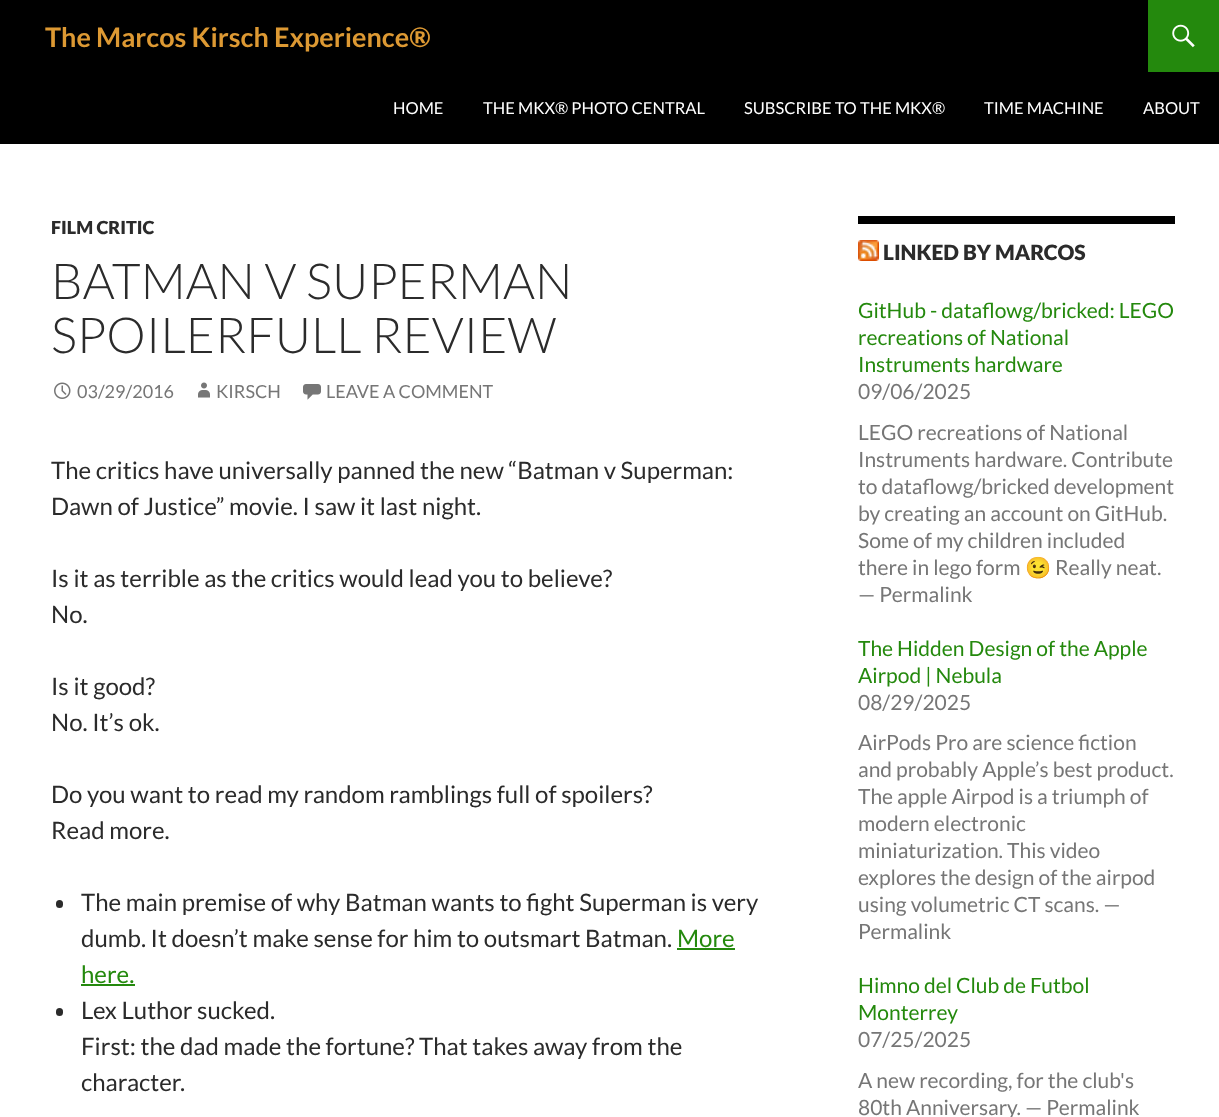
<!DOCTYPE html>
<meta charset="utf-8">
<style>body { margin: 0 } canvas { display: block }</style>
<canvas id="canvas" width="1219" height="1117"></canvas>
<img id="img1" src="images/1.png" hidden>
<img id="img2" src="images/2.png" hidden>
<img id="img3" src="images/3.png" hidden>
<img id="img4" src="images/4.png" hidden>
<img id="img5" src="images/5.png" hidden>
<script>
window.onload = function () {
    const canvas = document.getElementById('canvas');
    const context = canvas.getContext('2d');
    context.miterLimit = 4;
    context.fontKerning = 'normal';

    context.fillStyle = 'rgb(255, 255, 255)';
    context.fillRect(0, 0, 1219, 1117);
    context.fillStyle = 'rgb(0, 0, 0)';
    context.fillRect(0, 0, 1219, 144);
    context.fillStyle = 'rgb(36, 137, 13)';
    context.fillRect(1148, 0, 71, 72);
    context.drawImage(document.getElementById('img1'), 1172, 24, 23, 24);
    context.drawImage(document.getElementById('img2'), 54, 382, 17, 17);
    context.drawImage(document.getElementById('img3'), 198, 382, 12, 16);
    context.drawImage(document.getElementById('img4'), 303, 384, 18, 16);
    context.fillStyle = 'rgb(43, 43, 43)';
    context.beginPath();
    context.roundRect(56, 900, 7, 8, 3.5);
    context.fill();
    context.fillStyle = 'rgb(36, 137, 13)';
    context.fillRect(677, 948, 58, 2);
    context.fillRect(81, 984, 54, 2);
    context.fillStyle = 'rgb(43, 43, 43)';
    context.beginPath();
    context.roundRect(56, 1008, 7, 8, 3.5);
    context.fill();
    context.fillStyle = 'rgb(0, 0, 0)';
    context.fillRect(858, 216, 317, 8);
    context.drawImage(document.getElementById('img5'), 858, 240, 21, 21);
    context.font = 'bold 27px Lato';
    context.fillStyle = 'rgb(221, 153, 51)';
    context.fillText('The Marcos Kirsch Experience®', 45, 47);
    context.font = '16.5px Lato';
    context.fillStyle = 'rgb(255, 255, 255)';
    context.fillText('HOME', 393, 114);
    context.fillText('THE MKX® PHOTO CENTRAL', 483, 114);
    context.fillText('SUBSCRIBE TO THE MKX®', 744, 114);
    context.fillText('TIME MACHINE', 984, 114);
    context.fillText('ABOUT', 1143, 114);
    context.font = '900 18px Lato';
    context.fillStyle = 'rgb(43, 43, 43)';
    context.fillText('FILM CRITIC', 51, 234);
    context.font = '300 49.5px Lato';
    context.fillText('BATMAN V SUPERMAN', 51, 299);
    context.fillText('SPOILERFULL REVIEW', 51, 353);
    context.font = '18px Lato';
    context.fillStyle = 'rgb(118, 118, 118)';
    context.fillText('03/29/2016', 77, 398);
    context.fillText('KIRSCH', 216, 398);
    context.fillText('LEAVE A COMMENT', 326, 398);
    context.font = '24px Lato';
    context.fillStyle = 'rgb(43, 43, 43)';
    context.fillText('The critics have universally panned the new “Batman v Superman:', 51, 479);
    context.fillText('Dawn of Justice” movie. I saw it last night.', 51, 515);
    context.fillText('Is it as terrible as the critics would lead you to believe?', 51, 587);
    context.fillText('No.', 51, 623);
    context.fillText('Is it good?', 51, 695);
    context.fillText('No. It’s ok.', 51, 731);
    context.fillText('Do you want to read my random ramblings full of spoilers?', 51, 803);
    context.fillText('Read more.', 51, 839);
    context.fillText('The main premise of why Batman wants to fight Superman is very', 81, 911);
    context.fillText('dumb. It doesn’t make sense for him to outsmart Batman.', 81, 947);
    context.fillStyle = 'rgb(36, 137, 13)';
    context.fillText('More', 677, 947);
    context.fillText('here.', 81, 983);
    context.fillStyle = 'rgb(43, 43, 43)';
    context.fillText('Lex Luthor sucked.', 81, 1019);
    context.fillText('First: the dad made the fortune? That takes away from the', 81, 1055);
    context.fillText('character.', 81, 1091);
    context.font = '900 21px Lato';
    context.fillText('LINKED BY MARCOS', 883, 260);
    context.font = '21px Lato';
    context.fillStyle = 'rgb(36, 137, 13)';
    context.fillText('GitHub - dataflowg/bricked: LEGO', 858, 318);
    context.fillText('recreations of National', 858, 345);
    context.fillText('Instruments hardware', 858, 372);
    context.fillStyle = 'rgb(118, 118, 118)';
    context.fillText('09/06/2025', 858, 399);
    context.fillText('LEGO recreations of National', 858, 440);
    context.fillText('Instruments hardware. Contribute', 858, 467);
    context.fillText('to dataflowg/bricked development', 858, 494);
    context.fillText('by creating an account on GitHub.', 858, 521);
    context.fillText('Some of my children included', 858, 548);
    context.fillText('there in lego form', 858, 575);
    context.font = '21px Noto Color Emoji';
    context.fillText('😉', 1025, 575);
    context.font = '21px Lato';
    context.fillText('Really neat.', 1055, 575);
    context.fillText('— Permalink', 858, 602);
    context.fillStyle = 'rgb(36, 137, 13)';
    context.fillText('The Hidden Design of the Apple', 858, 656);
    context.fillText('Airpod | Nebula', 858, 683);
    context.fillStyle = 'rgb(118, 118, 118)';
    context.fillText('08/29/2025', 858, 710);
    context.fillText('AirPods Pro are science fiction', 858, 750);
    context.fillText('and probably Apple’s best product.', 858, 777);
    context.fillText('The apple Airpod is a triumph of', 858, 804);
    context.fillText('modern electronic', 858, 831);
    context.fillText('miniaturization. This video', 858, 858);
    context.fillText('explores the design of the airpod', 858, 885);
    context.fillText('using volumetric CT scans. —', 858, 912);
    context.fillText('Permalink', 858, 939);
    context.fillStyle = 'rgb(36, 137, 13)';
    context.fillText('Himno del Club de Futbol', 858, 993);
    context.fillText('Monterrey', 858, 1020);
    context.fillStyle = 'rgb(118, 118, 118)';
    context.fillText('07/25/2025', 858, 1047);
    context.fillText('A new recording, for the club\'s', 858, 1088);
    context.fillText('80th Anniversary. — Permalink', 858, 1115);
};
</script>
